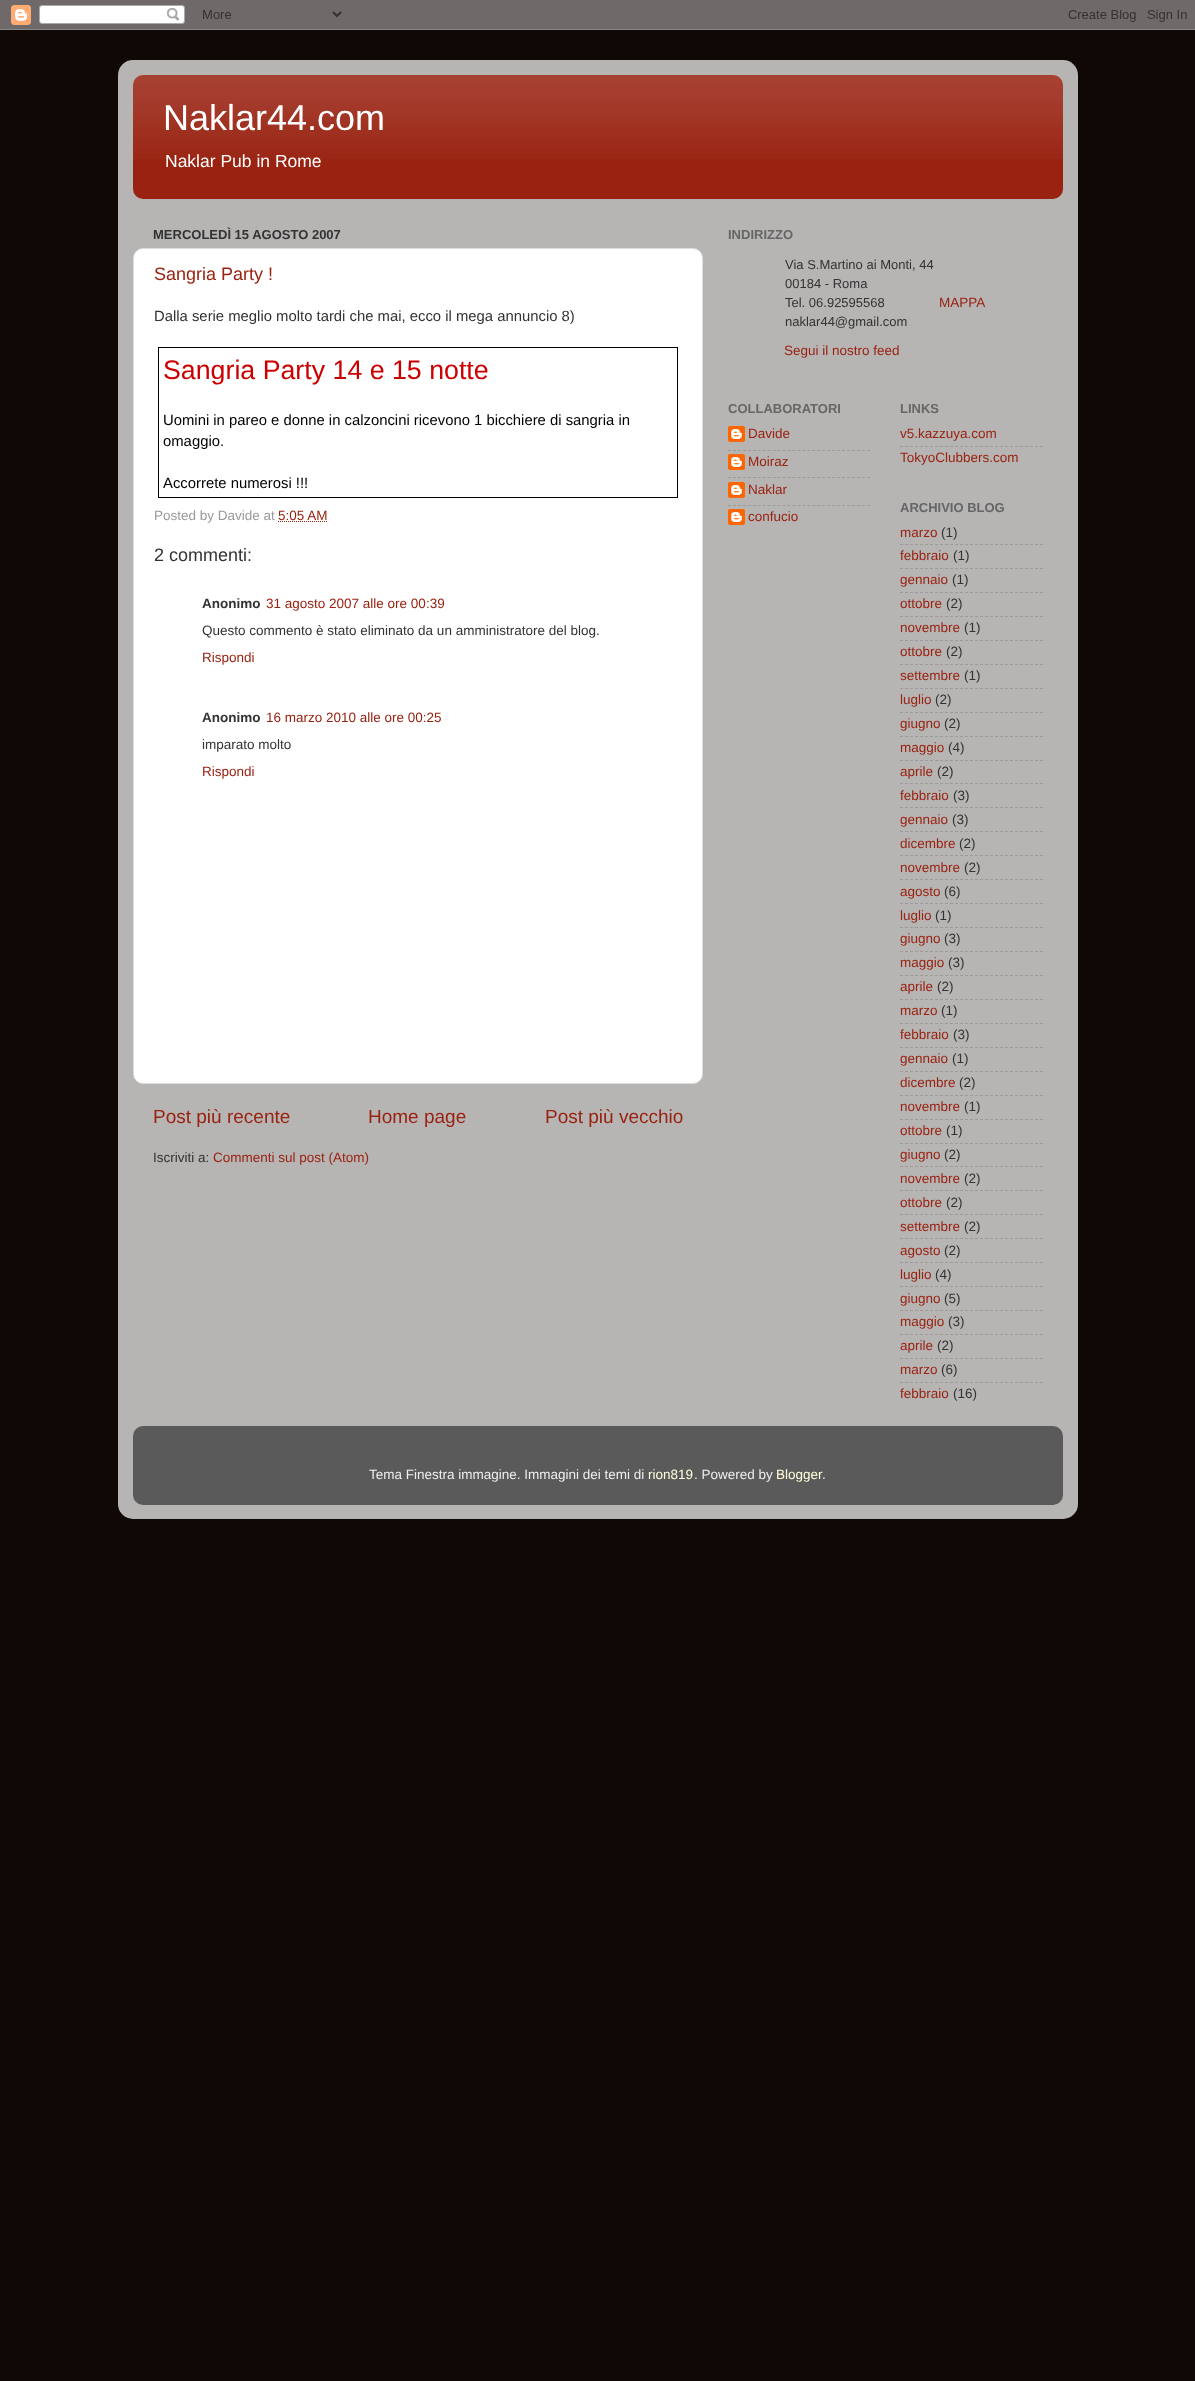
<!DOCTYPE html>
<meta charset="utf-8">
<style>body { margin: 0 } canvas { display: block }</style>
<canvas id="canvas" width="1195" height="2381"></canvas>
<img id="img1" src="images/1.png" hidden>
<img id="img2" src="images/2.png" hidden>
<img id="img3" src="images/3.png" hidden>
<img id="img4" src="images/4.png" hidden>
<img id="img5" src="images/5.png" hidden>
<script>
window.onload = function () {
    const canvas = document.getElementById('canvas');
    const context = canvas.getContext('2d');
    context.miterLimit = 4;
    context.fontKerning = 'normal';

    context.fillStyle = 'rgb(16, 8, 5)';
    context.fillRect(0, 0, 1195, 2381);
    context.drawImage(document.getElementById('img1'), 0, 0, 1195, 30);
    context.drawImage(document.getElementById('img2'), 118, 60, 960, 1459);
    context.fillStyle = 'rgb(153, 34, 17)';
    context.beginPath();
    context.roundRect(133, 75, 930, 124, 10);
    context.fill();
    context.drawImage(document.getElementById('img3'), 133, 75, 930, 84);
    context.fillStyle = 'rgb(255, 255, 255)';
    context.beginPath();
    context.roundRect(133.5, 248.5, 569, 835, 9.5);
    context.fill();
    context.strokeStyle = 'rgb(221, 221, 221)';
    context.stroke();
    context.strokeStyle = 'rgb(0, 0, 0)';
    context.strokeRect(158.5, 347.5, 519, 150);
    context.beginPath();
    context.moveTo(278, 521.5);
    context.lineTo(327.5, 521.5);
    context.strokeStyle = 'rgb(153, 34, 17)';
    context.setLineDash([1, 1]);
    context.stroke();
    context.drawImage(document.getElementById('img4'), 728, 426, 17, 16);
    context.beginPath();
    context.moveTo(728, 450.5);
    context.lineTo(870, 450.5);
    context.strokeStyle = 'rgb(156, 155, 154)';
    context.setLineDash([3, 1.96]);
    context.stroke();
    context.drawImage(document.getElementById('img4'), 728, 454, 17, 16);
    context.beginPath();
    context.moveTo(728, 477.5);
    context.lineTo(870, 477.5);
    context.stroke();
    context.drawImage(document.getElementById('img4'), 728, 482, 17, 16);
    context.beginPath();
    context.moveTo(728, 505.5);
    context.lineTo(870, 505.5);
    context.stroke();
    context.drawImage(document.getElementById('img4'), 728, 509, 17, 16);
    context.beginPath();
    context.moveTo(900, 446.5);
    context.lineTo(1043, 446.5);
    context.setLineDash([3, 2]);
    context.stroke();
    context.beginPath();
    context.moveTo(900, 544.5);
    context.lineTo(1043, 544.5);
    context.stroke();
    context.beginPath();
    context.moveTo(900, 568.5);
    context.lineTo(1043, 568.5);
    context.stroke();
    context.beginPath();
    context.moveTo(900, 592.5);
    context.lineTo(1043, 592.5);
    context.stroke();
    context.beginPath();
    context.moveTo(900, 616.5);
    context.lineTo(1043, 616.5);
    context.stroke();
    context.beginPath();
    context.moveTo(900, 640.5);
    context.lineTo(1043, 640.5);
    context.stroke();
    context.beginPath();
    context.moveTo(900, 664.5);
    context.lineTo(1043, 664.5);
    context.stroke();
    context.beginPath();
    context.moveTo(900, 688.5);
    context.lineTo(1043, 688.5);
    context.stroke();
    context.beginPath();
    context.moveTo(900, 712.5);
    context.lineTo(1043, 712.5);
    context.stroke();
    context.beginPath();
    context.moveTo(900, 736.5);
    context.lineTo(1043, 736.5);
    context.stroke();
    context.beginPath();
    context.moveTo(900, 760.5);
    context.lineTo(1043, 760.5);
    context.stroke();
    context.beginPath();
    context.moveTo(900, 783.5);
    context.lineTo(1043, 783.5);
    context.stroke();
    context.beginPath();
    context.moveTo(900, 807.5);
    context.lineTo(1043, 807.5);
    context.stroke();
    context.beginPath();
    context.moveTo(900, 831.5);
    context.lineTo(1043, 831.5);
    context.stroke();
    context.beginPath();
    context.moveTo(900, 855.5);
    context.lineTo(1043, 855.5);
    context.stroke();
    context.beginPath();
    context.moveTo(900, 879.5);
    context.lineTo(1043, 879.5);
    context.stroke();
    context.beginPath();
    context.moveTo(900, 903.5);
    context.lineTo(1043, 903.5);
    context.stroke();
    context.beginPath();
    context.moveTo(900, 927.5);
    context.lineTo(1043, 927.5);
    context.stroke();
    context.beginPath();
    context.moveTo(900, 951.5);
    context.lineTo(1043, 951.5);
    context.stroke();
    context.beginPath();
    context.moveTo(900, 975.5);
    context.lineTo(1043, 975.5);
    context.stroke();
    context.beginPath();
    context.moveTo(900, 999.5);
    context.lineTo(1043, 999.5);
    context.stroke();
    context.beginPath();
    context.moveTo(900, 1023.5);
    context.lineTo(1043, 1023.5);
    context.stroke();
    context.beginPath();
    context.moveTo(900, 1047.5);
    context.lineTo(1043, 1047.5);
    context.stroke();
    context.beginPath();
    context.moveTo(900, 1071.5);
    context.lineTo(1043, 1071.5);
    context.stroke();
    context.beginPath();
    context.moveTo(900, 1095.5);
    context.lineTo(1043, 1095.5);
    context.stroke();
    context.beginPath();
    context.moveTo(900, 1119.5);
    context.lineTo(1043, 1119.5);
    context.stroke();
    context.beginPath();
    context.moveTo(900, 1143.5);
    context.lineTo(1043, 1143.5);
    context.stroke();
    context.beginPath();
    context.moveTo(900, 1166.5);
    context.lineTo(1043, 1166.5);
    context.stroke();
    context.beginPath();
    context.moveTo(900, 1190.5);
    context.lineTo(1043, 1190.5);
    context.stroke();
    context.beginPath();
    context.moveTo(900, 1214.5);
    context.lineTo(1043, 1214.5);
    context.stroke();
    context.beginPath();
    context.moveTo(900, 1238.5);
    context.lineTo(1043, 1238.5);
    context.stroke();
    context.beginPath();
    context.moveTo(900, 1262.5);
    context.lineTo(1043, 1262.5);
    context.stroke();
    context.beginPath();
    context.moveTo(900, 1286.5);
    context.lineTo(1043, 1286.5);
    context.stroke();
    context.beginPath();
    context.moveTo(900, 1310.5);
    context.lineTo(1043, 1310.5);
    context.stroke();
    context.beginPath();
    context.moveTo(900, 1334.5);
    context.lineTo(1043, 1334.5);
    context.stroke();
    context.beginPath();
    context.moveTo(900, 1358.5);
    context.lineTo(1043, 1358.5);
    context.stroke();
    context.beginPath();
    context.moveTo(900, 1382.5);
    context.lineTo(1043, 1382.5);
    context.stroke();
    context.drawImage(document.getElementById('img5'), 133, 1426, 930, 79);
    context.font = '36px Liberation Sans';
    context.fillText('Naklar44.com', 163, 130);
    context.font = '17.5px Liberation Sans';
    context.fillText('Naklar Pub in Rome', 165, 167);
    context.font = 'bold 13px Liberation Sans';
    context.fillStyle = 'rgb(51, 51, 51)';
    context.fillText('MERCOLEDÌ 15 AGOSTO 2007', 153, 239);
    context.font = '18px Liberation Sans';
    context.fillStyle = 'rgb(153, 34, 17)';
    context.fillText('Sangria Party !', 154, 280);
    context.font = '14.85px Liberation Sans';
    context.fillStyle = 'rgb(51, 51, 51)';
    context.fillText('Dalla serie meglio molto tardi che mai, ecco il mega annuncio 8)', 154, 321);
    context.font = '26.75px Liberation Sans';
    context.fillStyle = 'rgb(204, 0, 0)';
    context.fillText('Sangria Party 14 e 15 notte', 163, 379);
    context.font = '14.85px Liberation Sans';
    context.fillStyle = 'rgb(0, 0, 0)';
    context.fillText('Uomini in pareo e donne in calzoncini ricevono 1 bicchiere di sangria in', 163, 425);
    context.fillText('omaggio.', 163, 446);
    context.fillText('Accorrete numerosi !!!', 163, 488);
    context.font = '13.5px Liberation Sans';
    context.fillStyle = 'rgb(153, 153, 153)';
    context.fillText('Posted by Davide at', 154, 520);
    context.fillStyle = 'rgb(153, 34, 17)';
    context.fillText('5:05 AM', 278, 520);
    context.font = '18px Liberation Sans';
    context.fillStyle = 'rgb(51, 51, 51)';
    context.fillText('2 commenti:', 154, 561);
    context.font = 'bold 13.5px Liberation Sans';
    context.fillText('Anonimo', 202, 608);
    context.font = '13.5px Liberation Sans';
    context.fillStyle = 'rgb(153, 34, 17)';
    context.fillText('31 agosto 2007 alle ore 00:39', 266, 608);
    context.fillStyle = 'rgb(51, 51, 51)';
    context.fillText('Questo commento è stato eliminato da un amministratore del blog.', 202, 635);
    context.fillStyle = 'rgb(153, 34, 17)';
    context.fillText('Rispondi', 202, 662);
    context.font = 'bold 13.5px Liberation Sans';
    context.fillStyle = 'rgb(51, 51, 51)';
    context.fillText('Anonimo', 202, 722);
    context.font = '13.5px Liberation Sans';
    context.fillStyle = 'rgb(153, 34, 17)';
    context.fillText('16 marzo 2010 alle ore 00:25', 266, 722);
    context.fillStyle = 'rgb(51, 51, 51)';
    context.fillText('imparato molto', 202, 749);
    context.fillStyle = 'rgb(153, 34, 17)';
    context.fillText('Rispondi', 202, 776);
    context.font = '19px Liberation Sans';
    context.fillText('Post più recente', 153, 1123);
    context.fillText('Home page', 368, 1123);
    context.fillText('Post più vecchio', 545, 1123);
    context.font = '13.5px Liberation Sans';
    context.fillStyle = 'rgb(51, 51, 51)';
    context.fillText('Iscriviti a:', 153, 1162);
    context.fillStyle = 'rgb(153, 34, 17)';
    context.fillText('Commenti sul post (Atom)', 213, 1162);
    context.font = 'bold 13px Liberation Sans';
    context.fillStyle = 'rgb(102, 102, 102)';
    context.fillText('INDIRIZZO', 728, 239);
    context.font = '13px Liberation Sans';
    context.fillStyle = 'rgb(51, 51, 51)';
    context.fillText('Via S.Martino ai Monti, 44', 785, 269);
    context.fillText('00184 - Roma', 785, 288);
    context.fillText('Tel. 06.92595568', 785, 307);
    context.fillText('naklar44@gmail.com', 785, 326);
    context.font = '13.5px Liberation Sans';
    context.fillStyle = 'rgb(153, 34, 17)';
    context.fillText('MAPPA', 939, 307);
    context.fillText('Segui il nostro feed', 784, 355);
    context.font = 'bold 13px Liberation Sans';
    context.fillStyle = 'rgb(102, 102, 102)';
    context.fillText('COLLABORATORI', 728, 413);
    context.font = '13.5px Liberation Sans';
    context.fillStyle = 'rgb(153, 34, 17)';
    context.fillText('Davide', 748, 438);
    context.fillText('Moiraz', 748, 466);
    context.fillText('Naklar', 748, 494);
    context.fillText('confucio', 748, 521);
    context.font = 'bold 13px Liberation Sans';
    context.fillStyle = 'rgb(102, 102, 102)';
    context.fillText('LINKS', 900, 413);
    context.font = '13.5px Liberation Sans';
    context.fillStyle = 'rgb(153, 34, 17)';
    context.fillText('v5.kazzuya.com', 900, 438);
    context.fillText('TokyoClubbers.com', 900, 462);
    context.font = 'bold 13px Liberation Sans';
    context.fillStyle = 'rgb(102, 102, 102)';
    context.fillText('ARCHIVIO BLOG', 900, 512);
    context.font = '13.5px Liberation Sans';
    context.fillStyle = 'rgb(153, 34, 17)';
    context.fillText('marzo', 900, 537);
    context.fillStyle = 'rgb(51, 51, 51)';
    context.fillText('(1)', 941, 537);
    context.fillStyle = 'rgb(153, 34, 17)';
    context.fillText('febbraio', 900, 560);
    context.fillStyle = 'rgb(51, 51, 51)';
    context.fillText('(1)', 953, 560);
    context.fillStyle = 'rgb(153, 34, 17)';
    context.fillText('gennaio', 900, 584);
    context.fillStyle = 'rgb(51, 51, 51)';
    context.fillText('(1)', 952, 584);
    context.fillStyle = 'rgb(153, 34, 17)';
    context.fillText('ottobre', 900, 608);
    context.fillStyle = 'rgb(51, 51, 51)';
    context.fillText('(2)', 946, 608);
    context.fillStyle = 'rgb(153, 34, 17)';
    context.fillText('novembre', 900, 632);
    context.fillStyle = 'rgb(51, 51, 51)';
    context.fillText('(1)', 964, 632);
    context.fillStyle = 'rgb(153, 34, 17)';
    context.fillText('ottobre', 900, 656);
    context.fillStyle = 'rgb(51, 51, 51)';
    context.fillText('(2)', 946, 656);
    context.fillStyle = 'rgb(153, 34, 17)';
    context.fillText('settembre', 900, 680);
    context.fillStyle = 'rgb(51, 51, 51)';
    context.fillText('(1)', 964, 680);
    context.fillStyle = 'rgb(153, 34, 17)';
    context.fillText('luglio', 900, 704);
    context.fillStyle = 'rgb(51, 51, 51)';
    context.fillText('(2)', 935, 704);
    context.fillStyle = 'rgb(153, 34, 17)';
    context.fillText('giugno', 900, 728);
    context.fillStyle = 'rgb(51, 51, 51)';
    context.fillText('(2)', 944, 728);
    context.fillStyle = 'rgb(153, 34, 17)';
    context.fillText('maggio', 900, 752);
    context.fillStyle = 'rgb(51, 51, 51)';
    context.fillText('(4)', 948, 752);
    context.fillStyle = 'rgb(153, 34, 17)';
    context.fillText('aprile', 900, 776);
    context.fillStyle = 'rgb(51, 51, 51)';
    context.fillText('(2)', 937, 776);
    context.fillStyle = 'rgb(153, 34, 17)';
    context.fillText('febbraio', 900, 800);
    context.fillStyle = 'rgb(51, 51, 51)';
    context.fillText('(3)', 953, 800);
    context.fillStyle = 'rgb(153, 34, 17)';
    context.fillText('gennaio', 900, 824);
    context.fillStyle = 'rgb(51, 51, 51)';
    context.fillText('(3)', 952, 824);
    context.fillStyle = 'rgb(153, 34, 17)';
    context.fillText('dicembre', 900, 848);
    context.fillStyle = 'rgb(51, 51, 51)';
    context.fillText('(2)', 959, 848);
    context.fillStyle = 'rgb(153, 34, 17)';
    context.fillText('novembre', 900, 872);
    context.fillStyle = 'rgb(51, 51, 51)';
    context.fillText('(2)', 964, 872);
    context.fillStyle = 'rgb(153, 34, 17)';
    context.fillText('agosto', 900, 896);
    context.fillStyle = 'rgb(51, 51, 51)';
    context.fillText('(6)', 944, 896);
    context.fillStyle = 'rgb(153, 34, 17)';
    context.fillText('luglio', 900, 920);
    context.fillStyle = 'rgb(51, 51, 51)';
    context.fillText('(1)', 935, 920);
    context.fillStyle = 'rgb(153, 34, 17)';
    context.fillText('giugno', 900, 943);
    context.fillStyle = 'rgb(51, 51, 51)';
    context.fillText('(3)', 944, 943);
    context.fillStyle = 'rgb(153, 34, 17)';
    context.fillText('maggio', 900, 967);
    context.fillStyle = 'rgb(51, 51, 51)';
    context.fillText('(3)', 948, 967);
    context.fillStyle = 'rgb(153, 34, 17)';
    context.fillText('aprile', 900, 991);
    context.fillStyle = 'rgb(51, 51, 51)';
    context.fillText('(2)', 937, 991);
    context.fillStyle = 'rgb(153, 34, 17)';
    context.fillText('marzo', 900, 1015);
    context.fillStyle = 'rgb(51, 51, 51)';
    context.fillText('(1)', 941, 1015);
    context.fillStyle = 'rgb(153, 34, 17)';
    context.fillText('febbraio', 900, 1039);
    context.fillStyle = 'rgb(51, 51, 51)';
    context.fillText('(3)', 953, 1039);
    context.fillStyle = 'rgb(153, 34, 17)';
    context.fillText('gennaio', 900, 1063);
    context.fillStyle = 'rgb(51, 51, 51)';
    context.fillText('(1)', 952, 1063);
    context.fillStyle = 'rgb(153, 34, 17)';
    context.fillText('dicembre', 900, 1087);
    context.fillStyle = 'rgb(51, 51, 51)';
    context.fillText('(2)', 959, 1087);
    context.fillStyle = 'rgb(153, 34, 17)';
    context.fillText('novembre', 900, 1111);
    context.fillStyle = 'rgb(51, 51, 51)';
    context.fillText('(1)', 964, 1111);
    context.fillStyle = 'rgb(153, 34, 17)';
    context.fillText('ottobre', 900, 1135);
    context.fillStyle = 'rgb(51, 51, 51)';
    context.fillText('(1)', 946, 1135);
    context.fillStyle = 'rgb(153, 34, 17)';
    context.fillText('giugno', 900, 1159);
    context.fillStyle = 'rgb(51, 51, 51)';
    context.fillText('(2)', 944, 1159);
    context.fillStyle = 'rgb(153, 34, 17)';
    context.fillText('novembre', 900, 1183);
    context.fillStyle = 'rgb(51, 51, 51)';
    context.fillText('(2)', 964, 1183);
    context.fillStyle = 'rgb(153, 34, 17)';
    context.fillText('ottobre', 900, 1207);
    context.fillStyle = 'rgb(51, 51, 51)';
    context.fillText('(2)', 946, 1207);
    context.fillStyle = 'rgb(153, 34, 17)';
    context.fillText('settembre', 900, 1231);
    context.fillStyle = 'rgb(51, 51, 51)';
    context.fillText('(2)', 964, 1231);
    context.fillStyle = 'rgb(153, 34, 17)';
    context.fillText('agosto', 900, 1255);
    context.fillStyle = 'rgb(51, 51, 51)';
    context.fillText('(2)', 944, 1255);
    context.fillStyle = 'rgb(153, 34, 17)';
    context.fillText('luglio', 900, 1279);
    context.fillStyle = 'rgb(51, 51, 51)';
    context.fillText('(4)', 935, 1279);
    context.fillStyle = 'rgb(153, 34, 17)';
    context.fillText('giugno', 900, 1303);
    context.fillStyle = 'rgb(51, 51, 51)';
    context.fillText('(5)', 944, 1303);
    context.fillStyle = 'rgb(153, 34, 17)';
    context.fillText('maggio', 900, 1326);
    context.fillStyle = 'rgb(51, 51, 51)';
    context.fillText('(3)', 948, 1326);
    context.fillStyle = 'rgb(153, 34, 17)';
    context.fillText('aprile', 900, 1350);
    context.fillStyle = 'rgb(51, 51, 51)';
    context.fillText('(2)', 937, 1350);
    context.fillStyle = 'rgb(153, 34, 17)';
    context.fillText('marzo', 900, 1374);
    context.fillStyle = 'rgb(51, 51, 51)';
    context.fillText('(6)', 941, 1374);
    context.fillStyle = 'rgb(153, 34, 17)';
    context.fillText('febbraio', 900, 1398);
    context.fillStyle = 'rgb(51, 51, 51)';
    context.fillText('(16)', 953, 1398);
    context.fillStyle = 'rgb(238, 238, 238)';
    context.fillText('Tema Finestra immagine. Immagini dei temi di', 369, 1479);
    context.fillStyle = 'rgb(255, 255, 221)';
    context.fillText('rion819', 648, 1479);
    context.fillStyle = 'rgb(238, 238, 238)';
    context.fillText('. Powered by', 694, 1479);
    context.fillStyle = 'rgb(255, 255, 221)';
    context.fillText('Blogger', 776, 1479);
    context.fillStyle = 'rgb(238, 238, 238)';
    context.fillText('.', 822, 1479);
};
</script>
